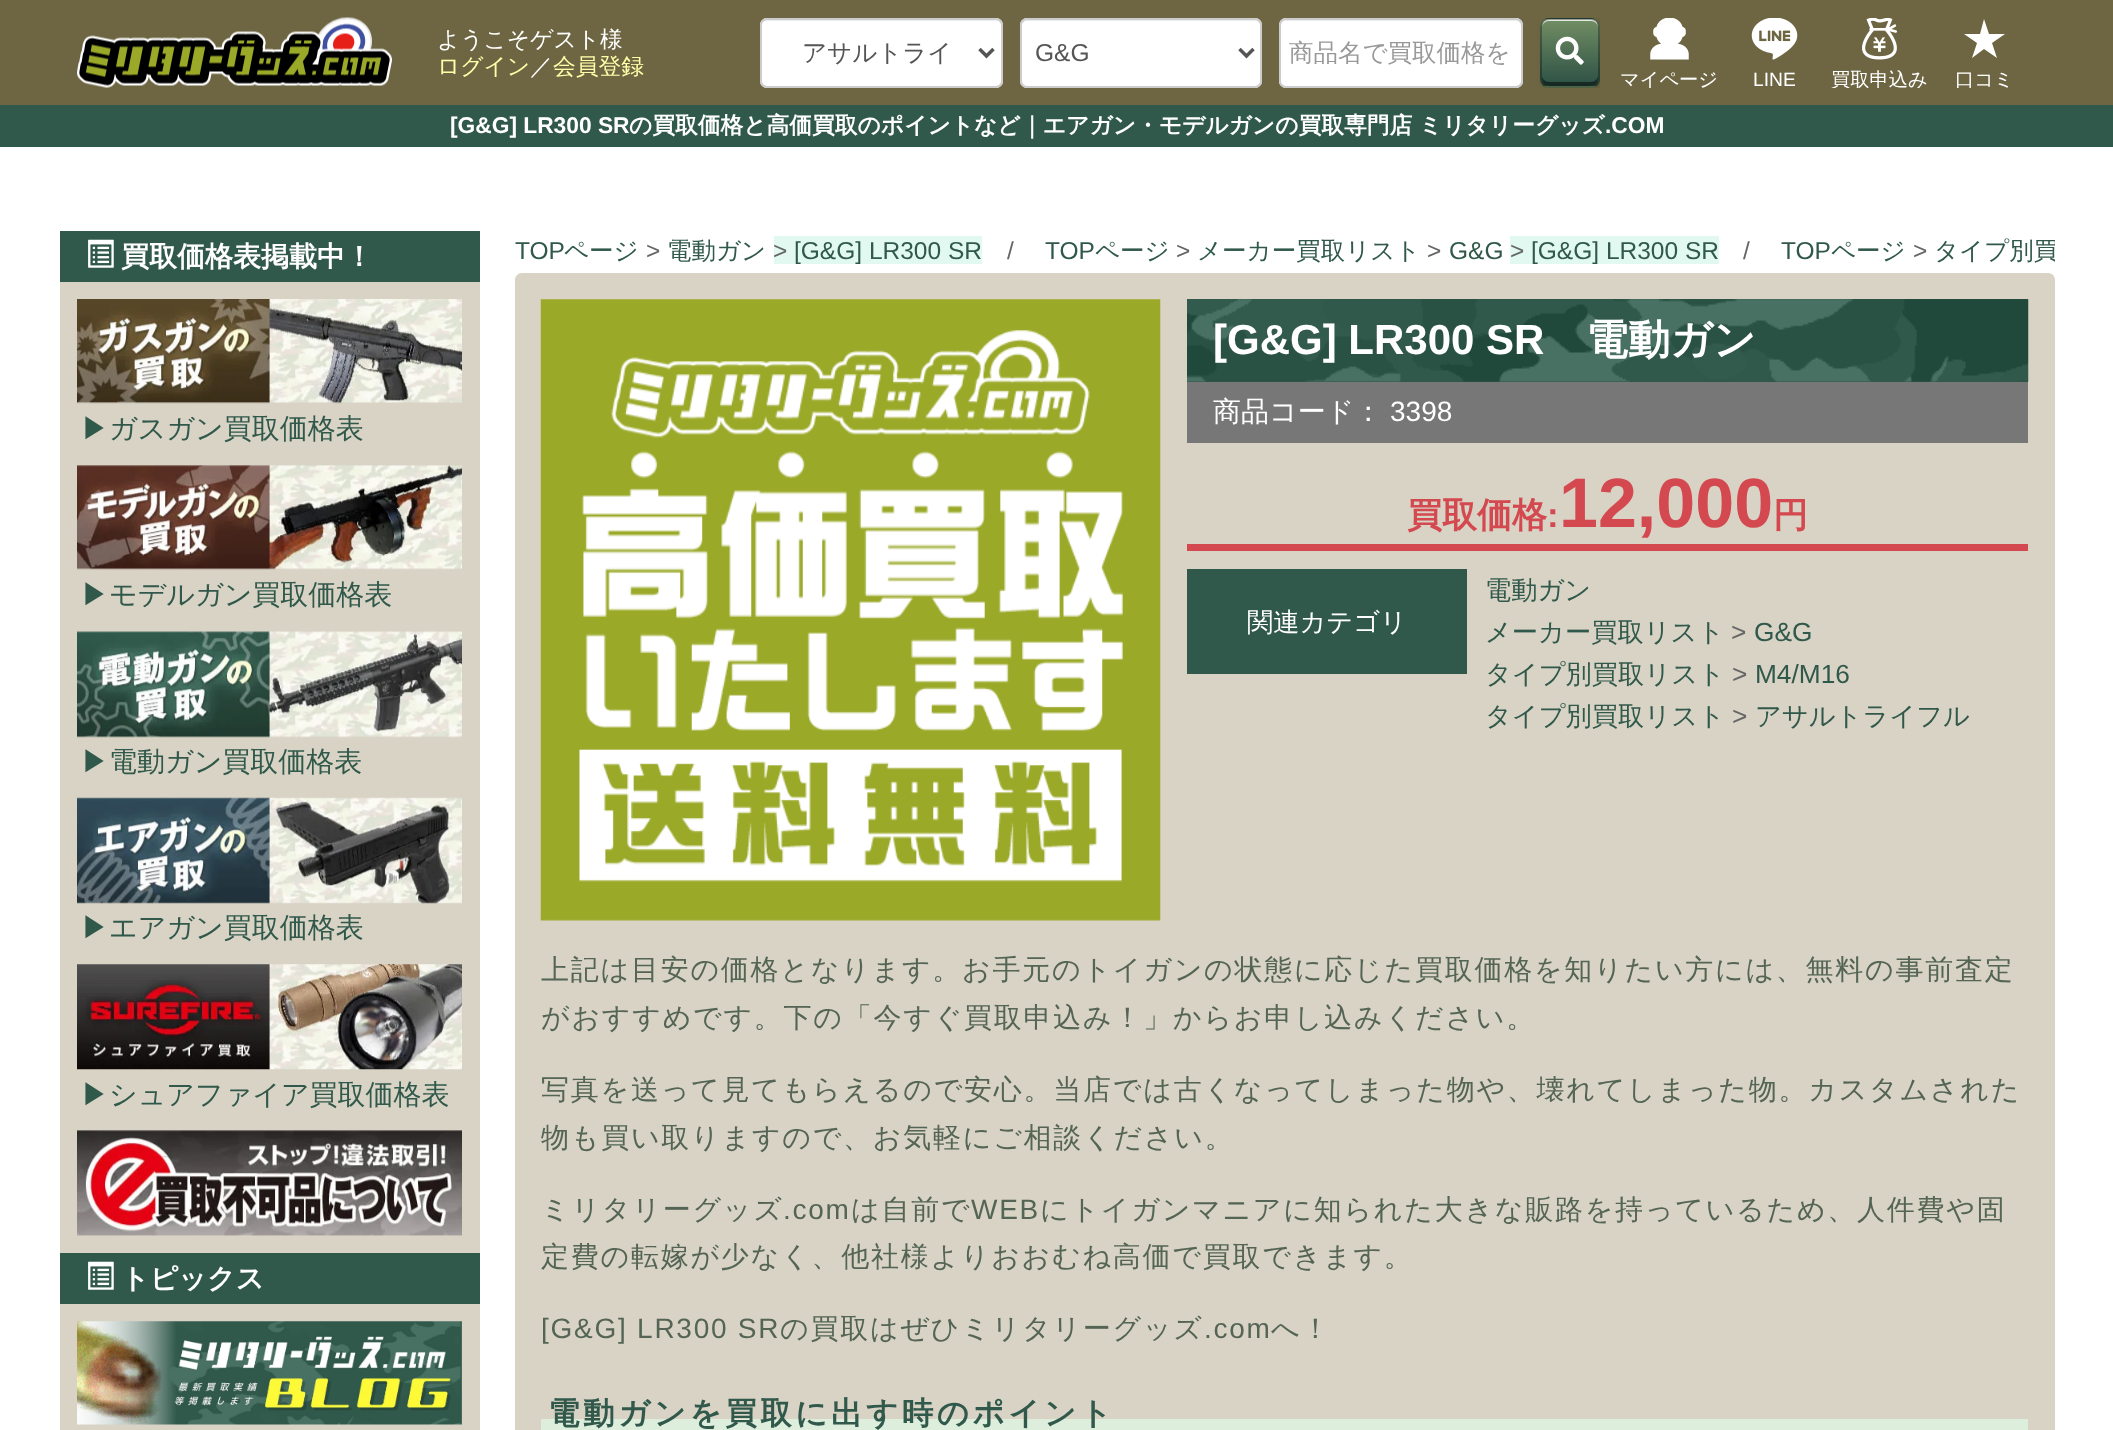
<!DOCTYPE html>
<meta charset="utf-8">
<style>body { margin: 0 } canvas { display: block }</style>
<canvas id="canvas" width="2113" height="1430"></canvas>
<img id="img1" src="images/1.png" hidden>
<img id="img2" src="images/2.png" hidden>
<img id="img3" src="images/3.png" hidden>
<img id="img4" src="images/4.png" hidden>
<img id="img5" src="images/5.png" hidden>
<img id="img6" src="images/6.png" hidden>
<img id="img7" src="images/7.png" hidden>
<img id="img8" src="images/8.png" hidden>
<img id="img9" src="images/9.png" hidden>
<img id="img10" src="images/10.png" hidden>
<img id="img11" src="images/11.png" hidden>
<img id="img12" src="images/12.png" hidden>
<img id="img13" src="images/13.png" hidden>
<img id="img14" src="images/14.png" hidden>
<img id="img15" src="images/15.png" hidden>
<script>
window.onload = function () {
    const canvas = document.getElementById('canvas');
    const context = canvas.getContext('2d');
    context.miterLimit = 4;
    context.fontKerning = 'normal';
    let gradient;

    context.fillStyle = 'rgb(255, 255, 255)';
    context.fillRect(0, 0, 2113, 1430);
    context.fillStyle = 'rgb(110, 102, 67)';
    context.fillRect(0, 0, 2113, 105);
    context.drawImage(document.getElementById('img1'), 77, 17, 315, 71);
    context.fillStyle = 'rgb(255, 255, 255)';
    context.beginPath();
    context.roundRect(760, 18, 243, 70, 7);
    context.fill();
    context.fillStyle = 'rgb(236, 236, 236)';
    context.beginPath();
    context.moveTo(766, 21);
    context.lineTo(996, 21);
    context.bezierCurveTo(999, 21, 1001, 23, 1001, 26);
    context.bezierCurveTo(1001, 23, 1001, 20, 997, 19);
    context.lineTo(765, 19);
    context.bezierCurveTo(761, 20, 761, 23, 761, 26);
    context.bezierCurveTo(761, 23, 764, 21, 766, 21);
    context.closePath();
    context.fill();
    context.beginPath();
    context.roundRect(761, 19, 241, 68, 6);
    context.strokeStyle = 'rgb(204, 204, 204)';
    context.lineWidth = 2;
    context.stroke();
    context.beginPath();
    context.moveTo(979.5, 49);
    context.lineTo(986.5, 56);
    context.lineTo(993.5, 49);
    context.strokeStyle = 'rgb(85, 85, 85)';
    context.lineWidth = 3.5;
    context.stroke();
    context.fillStyle = 'rgb(255, 255, 255)';
    context.beginPath();
    context.roundRect(1020, 18, 242, 70, 7);
    context.fill();
    context.fillStyle = 'rgb(236, 236, 236)';
    context.beginPath();
    context.moveTo(1027, 21);
    context.lineTo(1255, 21);
    context.bezierCurveTo(1258, 21, 1260, 23, 1260, 26);
    context.bezierCurveTo(1260, 23, 1260, 20, 1256, 19);
    context.lineTo(1026, 19);
    context.bezierCurveTo(1022, 20, 1022, 23, 1022, 26);
    context.bezierCurveTo(1022, 23, 1024, 21, 1027, 21);
    context.closePath();
    context.fill();
    context.beginPath();
    context.roundRect(1021, 19, 240, 68, 6);
    context.strokeStyle = 'rgb(204, 204, 204)';
    context.lineWidth = 2;
    context.stroke();
    context.beginPath();
    context.moveTo(1239.5, 49);
    context.lineTo(1246.5, 56);
    context.lineTo(1253.5, 49);
    context.strokeStyle = 'rgb(85, 85, 85)';
    context.lineWidth = 3.5;
    context.stroke();
    context.fillStyle = 'rgb(255, 255, 255)';
    context.beginPath();
    context.roundRect(1279, 18, 244, 70, 7);
    context.fill();
    context.fillStyle = 'rgb(236, 236, 236)';
    context.beginPath();
    context.moveTo(1286, 21);
    context.lineTo(1516, 21);
    context.bezierCurveTo(1518, 21, 1521, 23, 1521, 26);
    context.bezierCurveTo(1521, 23, 1521, 20, 1517, 19);
    context.lineTo(1285, 19);
    context.bezierCurveTo(1281, 20, 1281, 23, 1281, 26);
    context.bezierCurveTo(1281, 23, 1283, 21, 1286, 21);
    context.closePath();
    context.fill();
    context.beginPath();
    context.roundRect(1280, 19, 242, 68, 6);
    context.strokeStyle = 'rgb(204, 204, 204)';
    context.lineWidth = 2;
    context.stroke();
    context.save();
    context.beginPath();
    context.rect(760, 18, 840, 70);
    context.clip();
    context.fillStyle = 'rgba(0, 0, 0, 0.2)';
    context.filter = 'blur(2px)';
    context.beginPath();
    context.roundRect(1542, 19, 59, 70, 9);
    context.fill();
    context.filter = 'none';
    context.restore();
    context.save();
    context.beginPath();
    context.roundRect(1540, 18, 60, 70, 9);
    context.clip();
    gradient = context.createLinearGradient(1570, -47, 1570, 19);
    gradient.addColorStop(0, 'rgb(114, 142, 100)');
    gradient.addColorStop(1, 'rgb(44, 80, 68)');
    context.fillStyle = gradient;
    context.fillRect(1540, 18, 60, 1);
    gradient = context.createLinearGradient(1570, 19, 1570, 86);
    gradient.addColorStop(0, 'rgb(114, 142, 100)');
    gradient.addColorStop(1, 'rgb(44, 80, 68)');
    context.fillStyle = gradient;
    context.fillRect(1540, 19, 60, 67);
    gradient = context.createLinearGradient(1570, 86, 1570, 152);
    gradient.addColorStop(0, 'rgb(114, 142, 100)');
    gradient.addColorStop(1, 'rgb(44, 80, 68)');
    context.fillStyle = gradient;
    context.fillRect(1540, 86, 60, 2);
    context.restore();
    context.fillStyle = 'rgba(0, 0, 0, 0.5)';
    context.beginPath();
    context.moveTo(1542, 75);
    context.bezierCurveTo(1542, 86, 1545, 86, 1556, 86);
    context.lineTo(1584, 86);
    context.bezierCurveTo(1595, 86, 1598, 86, 1598, 75);
    context.bezierCurveTo(1598, 79, 1595, 82, 1591, 82);
    context.lineTo(1549, 82);
    context.bezierCurveTo(1545, 82, 1542, 79, 1542, 75);
    context.closePath();
    context.fill();
    context.fillStyle = 'rgba(255, 255, 255, 0.8)';
    context.beginPath();
    context.moveTo(1549, 21);
    context.lineTo(1591, 21);
    context.bezierCurveTo(1595, 21, 1598, 24, 1598, 28);
    context.bezierCurveTo(1598, 18, 1592, 19, 1584, 19);
    context.lineTo(1556, 19);
    context.bezierCurveTo(1548, 19, 1542, 18, 1542, 28);
    context.bezierCurveTo(1542, 24, 1545, 21, 1549, 21);
    context.closePath();
    context.fill();
    context.beginPath();
    context.roundRect(1541, 19, 58, 68, 8);
    context.strokeStyle = 'rgba(0, 0, 0, 0.3)';
    context.stroke();
    context.drawImage(document.getElementById('img2'), 1555, 36, 29, 29);
    context.drawImage(document.getElementById('img3'), 1650, 18, 39, 42);
    context.drawImage(document.getElementById('img4'), 1751, 18, 47, 42);
    context.drawImage(document.getElementById('img5'), 1862, 18, 35, 42);
    context.fillStyle = 'rgb(255, 255, 255)';
    context.beginPath();
    context.moveTo(1989, 34);
    context.lineTo(2005, 34);
    context.lineTo(1992, 43);
    context.lineTo(1997, 58);
    context.lineTo(1984, 49);
    context.lineTo(1972, 58);
    context.lineTo(1977, 43);
    context.lineTo(1964, 34);
    context.lineTo(1980, 34);
    context.lineTo(1984, 19);
    context.closePath();
    context.fill();
    context.fillStyle = 'rgb(49, 89, 75)';
    context.fillRect(0, 105, 2113, 42);
    context.fillStyle = 'rgb(216, 211, 197)';
    context.fillRect(60, 282, 420, 971);
    context.fillStyle = 'rgb(49, 89, 75)';
    context.fillRect(60, 231, 420, 51);
    context.drawImage(document.getElementById('img6'), 88, 239, 26, 29);
    context.drawImage(document.getElementById('img7'), 77, 299, 385, 105);
    context.drawImage(document.getElementById('img8'), 77, 465, 385, 105);
    context.drawImage(document.getElementById('img9'), 77, 631, 385, 107);
    context.drawImage(document.getElementById('img10'), 77, 797, 385, 107);
    context.drawImage(document.getElementById('img11'), 77, 964, 385, 106);
    context.drawImage(document.getElementById('img12'), 77, 1130, 385, 106);
    context.fillStyle = 'rgb(216, 211, 197)';
    context.fillRect(60, 1304, 420, 126);
    context.fillStyle = 'rgb(49, 89, 75)';
    context.fillRect(60, 1253, 420, 51);
    context.drawImage(document.getElementById('img6'), 88, 1261, 26, 29);
    context.drawImage(document.getElementById('img13'), 77, 1321, 385, 104);
    context.fillStyle = 'rgb(225, 249, 241)';
    context.fillRect(774, 236, 208, 28);
    context.fillRect(1510, 236, 209, 28);
    context.fillStyle = 'rgb(216, 211, 197)';
    context.beginPath();
    context.moveTo(522, 273);
    context.lineTo(2048, 273);
    context.bezierCurveTo(2052, 273, 2055, 276, 2055, 280);
    context.lineTo(2055, 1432);
    context.lineTo(515, 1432);
    context.lineTo(515, 280);
    context.bezierCurveTo(515, 276, 518, 273, 522, 273);
    context.closePath();
    context.fill();
    context.drawImage(document.getElementById('img14'), 540, 299, 621, 622);
    context.fillStyle = 'rgb(49, 89, 75)';
    context.fillRect(1187, 299, 841, 83);
    context.drawImage(document.getElementById('img15'), 1187, 299, 842, 83);
    context.fillStyle = 'rgb(119, 119, 119)';
    context.fillRect(1187, 382, 841, 61);
    context.fillStyle = 'rgb(212, 73, 80)';
    context.fillRect(1187, 544, 841, 7);
    context.fillStyle = 'rgb(49, 89, 75)';
    context.fillRect(1187, 569, 280, 105);
    context.fillStyle = 'rgb(221, 238, 221)';
    context.fillRect(541, 1419, 1487, 11);
    context.font = '500 22.75px WenQuanYi Zen Hei';
    context.fillStyle = 'rgb(255, 255, 255)';
    context.fillText('ようこそゲスト様', 437, 47);
    context.fillStyle = 'rgb(255, 255, 170)';
    context.fillText('ログイン', 437, 74);
    context.fillStyle = 'rgb(255, 255, 255)';
    context.fillText('／', 530, 74);
    context.fillStyle = 'rgb(255, 255, 170)';
    context.fillText('会員登録', 553, 74);
    context.font = '500 24.5px WenQuanYi Zen Hei';
    context.fillStyle = 'rgb(85, 85, 85)';
    context.fillText('アサルトライ', 802, 61);
    context.font = '24.5px Liberation Sans';
    context.fillText('G&G', 1035, 61);
    context.font = '500 24.5px WenQuanYi Zen Hei';
    context.fillStyle = 'rgb(153, 153, 153)';
    context.fillText('商品名で買取価格を', 1289, 61);
    context.save();
    context.beginPath();
    context.rect(1617, 18, 105, 70);
    context.clip();
    context.font = '500 19.25px WenQuanYi Zen Hei';
    context.fillStyle = 'rgb(255, 255, 255)';
    context.fillText('マイページ', 1620, 86);
    context.restore();
    context.font = '19.25px Liberation Sans';
    context.fillStyle = 'rgb(255, 255, 255)';
    context.fillText('LINE', 1753, 86);
    context.save();
    context.beginPath();
    context.rect(1827, 18, 105, 70);
    context.clip();
    context.font = '500 19.25px WenQuanYi Zen Hei';
    context.fillText('買取申込み', 1831, 86);
    context.restore();
    context.save();
    context.beginPath();
    context.rect(1932, 18, 105, 70);
    context.clip();
    context.font = '500 19.25px WenQuanYi Zen Hei';
    context.fillText('口コミ', 1955, 86);
    context.restore();
    context.font = 'bold 22.75px Liberation Sans';
    context.fillText('[G&G] LR300 SR', 450, 133);
    context.font = 'bold 22.75px WenQuanYi Zen Hei';
    context.fillText('の買取価格と高価買取のポイントなど｜エアガン・モデルガンの買取専門店', 629, 133);
    context.fillText('ミリタリーグッズ', 1419, 133);
    context.font = 'bold 22.75px Liberation Sans';
    context.fillText('.COM', 1605, 133);
    context.font = 'bold 28px WenQuanYi Zen Hei';
    context.fillText('買取価格表掲載中！', 121, 266);
    context.font = '500 28px WenQuanYi Zen Hei';
    context.fillStyle = 'rgb(49, 89, 75)';
    context.fillText('▶ガスガン買取価格表', 81, 438);
    context.fillText('▶モデルガン買取価格表', 81, 604);
    context.fillText('▶電動ガン買取価格表', 81, 771);
    context.fillText('▶エアガン買取価格表', 81, 937);
    context.fillText('▶シュアファイア買取価格表', 81, 1104);
    context.font = 'bold 28px WenQuanYi Zen Hei';
    context.fillStyle = 'rgb(255, 255, 255)';
    context.fillText('トピックス', 121, 1288);
    context.font = '24.5px Liberation Sans';
    context.fillStyle = 'rgb(49, 89, 75)';
    context.fillText('TOP', 515, 259);
    context.font = '500 24.5px WenQuanYi Zen Hei';
    context.fillText('ページ', 564, 259);
    context.font = '24.5px Liberation Sans';
    context.fillStyle = 'rgb(102, 102, 102)';
    context.fillText('>', 646, 259);
    context.font = '500 24.5px WenQuanYi Zen Hei';
    context.fillStyle = 'rgb(49, 89, 75)';
    context.fillText('電動ガン', 667, 259);
    context.font = '24.5px Liberation Sans';
    context.fillStyle = 'rgb(102, 102, 102)';
    context.fillText('>', 773, 259);
    context.fillStyle = 'rgb(49, 89, 75)';
    context.fillText('[G&G] LR300 SR', 794, 259);
    context.fillStyle = 'rgb(102, 102, 102)';
    context.fillText('/', 1007, 259);
    context.fillStyle = 'rgb(49, 89, 75)';
    context.fillText('TOP', 1045, 259);
    context.font = '500 24.5px WenQuanYi Zen Hei';
    context.fillText('ページ', 1095, 259);
    context.font = '24.5px Liberation Sans';
    context.fillStyle = 'rgb(102, 102, 102)';
    context.fillText('>', 1176, 259);
    context.font = '500 24.5px WenQuanYi Zen Hei';
    context.fillStyle = 'rgb(49, 89, 75)';
    context.fillText('メーカー買取リスト', 1197, 259);
    context.font = '24.5px Liberation Sans';
    context.fillStyle = 'rgb(102, 102, 102)';
    context.fillText('>', 1427, 259);
    context.fillStyle = 'rgb(49, 89, 75)';
    context.fillText('G&G', 1449, 259);
    context.fillStyle = 'rgb(102, 102, 102)';
    context.fillText('>', 1510, 259);
    context.fillStyle = 'rgb(49, 89, 75)';
    context.fillText('[G&G] LR300 SR', 1531, 259);
    context.fillStyle = 'rgb(102, 102, 102)';
    context.fillText('/', 1743, 259);
    context.fillStyle = 'rgb(49, 89, 75)';
    context.fillText('TOP', 1781, 259);
    context.font = '500 24.5px WenQuanYi Zen Hei';
    context.fillText('ページ', 1831, 259);
    context.font = '24.5px Liberation Sans';
    context.fillStyle = 'rgb(102, 102, 102)';
    context.fillText('>', 1913, 259);
    context.save();
    context.beginPath();
    context.rect(515, 231, 1540, 42);
    context.clip();
    context.font = '500 24.5px WenQuanYi Zen Hei';
    context.fillStyle = 'rgb(49, 89, 75)';
    context.fillText('タイプ別買', 1934, 259);
    context.restore();
    context.font = 'bold 42px Liberation Sans';
    context.fillStyle = 'rgb(255, 255, 255)';
    context.fillText('[G&G] LR300 SR', 1213, 354);
    context.font = 'bold 42px WenQuanYi Zen Hei';
    context.fillText('電動ガン', 1586, 354);
    context.font = '500 28px WenQuanYi Zen Hei';
    context.fillText('商品コード：', 1213, 421);
    context.font = '28px Liberation Sans';
    context.fillText('3398', 1390, 421);
    context.font = 'bold 35px WenQuanYi Zen Hei';
    context.fillStyle = 'rgb(212, 73, 80)';
    context.fillText('買取価格', 1407, 527);
    context.font = 'bold 35px Liberation Sans';
    context.fillText(':', 1547, 527);
    context.font = 'bold 70px Liberation Sans';
    context.fillText('12,000', 1559, 527);
    context.font = 'bold 35px WenQuanYi Zen Hei';
    context.fillText('円', 1773, 527);
    context.font = '500 26.25px WenQuanYi Zen Hei';
    context.fillStyle = 'rgb(49, 89, 75)';
    context.fillText('電動ガン', 1485, 599);
    context.fillStyle = 'rgb(255, 255, 255)';
    context.fillText('関連カテゴリ', 1247, 631);
    context.fillStyle = 'rgb(49, 89, 75)';
    context.fillText('メーカー買取リスト', 1485, 641);
    context.font = '26.25px Liberation Sans';
    context.fillStyle = 'rgb(102, 102, 102)';
    context.fillText('>', 1731, 641);
    context.fillStyle = 'rgb(49, 89, 75)';
    context.fillText('G&G', 1754, 641);
    context.font = '500 26.25px WenQuanYi Zen Hei';
    context.fillText('タイプ別買取リスト', 1485, 683);
    context.font = '26.25px Liberation Sans';
    context.fillStyle = 'rgb(102, 102, 102)';
    context.fillText('>', 1732, 683);
    context.fillStyle = 'rgb(49, 89, 75)';
    context.fillText('M4/M16', 1755, 683);
    context.font = '500 26.25px WenQuanYi Zen Hei';
    context.fillText('タイプ別買取リスト', 1485, 725);
    context.font = '26.25px Liberation Sans';
    context.fillStyle = 'rgb(102, 102, 102)';
    context.fillText('>', 1732, 725);
    context.font = '500 26.25px WenQuanYi Zen Hei';
    context.fillStyle = 'rgb(49, 89, 75)';
    context.fillText('アサルトライフル', 1755, 725);
    context.letterSpacing = '1.75px';
    context.font = '500 28px WenQuanYi Zen Hei';
    context.fillStyle = 'rgb(85, 101, 85)';
    context.fillText('上記は目安の価格となります。お手元のトイガンの状態に応じた買取価格を知りたい方には、無料の事前査定', 541, 979);
    context.fillText('がおすすめです。下の「今すぐ買取申込み！」からお申し込みください。', 541, 1027);
    context.fillText('写真を送って見てもらえるので安心。当店では古くなってしまった物や、壊れてしまった物。カスタムされた', 541, 1099);
    context.fillText('物も買い取りますので、お気軽にご相談ください。', 541, 1147);
    context.fillText('ミリタリーグッズ', 541, 1219);
    context.font = '28px Liberation Sans';
    context.fillText('.com', 783, 1219);
    context.font = '500 28px WenQuanYi Zen Hei';
    context.fillText('は自前で', 851, 1219);
    context.font = '28px Liberation Sans';
    context.fillText('WEB', 971, 1219);
    context.font = '500 28px WenQuanYi Zen Hei';
    context.fillText('にトイガンマニアに知られた大きな販路を持っているため、人件費や固', 1040, 1219);
    context.fillText('定費の転嫁が少なく、他社様よりおおむね高価で買取できます。', 541, 1266);
    context.font = '28px Liberation Sans';
    context.fillText('[G&G] LR300 SR', 541, 1338);
    context.font = '500 28px WenQuanYi Zen Hei';
    context.fillText('の買取はぜひミリタリーグッズ', 780, 1338);
    context.font = '28px Liberation Sans';
    context.fillText('.com', 1204, 1338);
    context.font = '500 28px WenQuanYi Zen Hei';
    context.fillText('へ！', 1271, 1338);
    context.letterSpacing = '3.5px';
    context.font = 'bold 31.5px WenQuanYi Zen Hei';
    context.fillStyle = 'rgb(49, 89, 75)';
    context.fillText('電動ガンを買取に出す時のポイント', 548, 1424);
};
</script>
